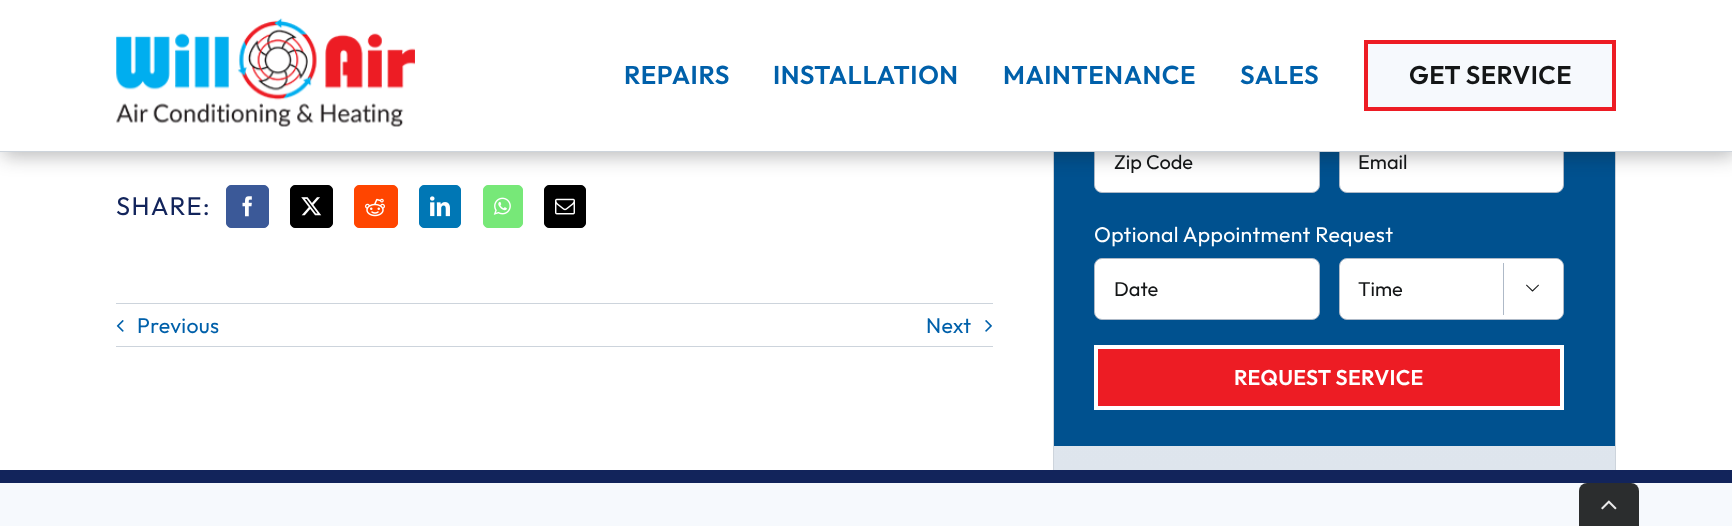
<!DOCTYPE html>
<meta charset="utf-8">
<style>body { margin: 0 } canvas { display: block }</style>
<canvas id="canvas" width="1732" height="526"></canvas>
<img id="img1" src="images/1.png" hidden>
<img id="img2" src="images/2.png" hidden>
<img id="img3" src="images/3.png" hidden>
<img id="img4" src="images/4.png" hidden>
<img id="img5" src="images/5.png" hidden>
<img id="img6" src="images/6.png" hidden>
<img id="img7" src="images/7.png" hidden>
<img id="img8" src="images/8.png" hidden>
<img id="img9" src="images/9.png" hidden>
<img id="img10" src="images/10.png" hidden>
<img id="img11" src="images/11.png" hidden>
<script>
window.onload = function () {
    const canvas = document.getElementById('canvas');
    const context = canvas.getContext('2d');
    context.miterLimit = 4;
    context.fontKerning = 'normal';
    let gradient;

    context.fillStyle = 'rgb(255, 255, 255)';
    context.fillRect(0, 0, 1732, 526);
    context.fillStyle = 'rgb(59, 89, 152)';
    context.beginPath();
    context.roundRect(226.5, 185.5, 42, 42, 4.5);
    context.fill();
    context.strokeStyle = 'rgb(59, 89, 152)';
    context.stroke();
    context.fillStyle = 'rgb(0, 0, 0)';
    context.beginPath();
    context.roundRect(290.5, 185.5, 42, 42, 4.5);
    context.fill();
    context.strokeStyle = 'rgb(0, 0, 0)';
    context.stroke();
    context.fillStyle = 'rgb(255, 69, 0)';
    context.beginPath();
    context.roundRect(354.5, 185.5, 43, 42, 4.5);
    context.fill();
    context.strokeStyle = 'rgb(255, 69, 0)';
    context.stroke();
    context.fillStyle = 'rgb(0, 119, 181)';
    context.beginPath();
    context.roundRect(419.5, 185.5, 41, 42, 4.5);
    context.fill();
    context.strokeStyle = 'rgb(0, 119, 181)';
    context.stroke();
    context.fillStyle = 'rgb(119, 232, 120)';
    context.beginPath();
    context.roundRect(483.5, 185.5, 39, 42, 4.5);
    context.fill();
    context.strokeStyle = 'rgb(119, 232, 120)';
    context.stroke();
    context.fillStyle = 'rgb(0, 0, 0)';
    context.beginPath();
    context.roundRect(544.5, 185.5, 41, 42, 4.5);
    context.fill();
    context.strokeStyle = 'rgb(0, 0, 0)';
    context.stroke();
    context.fillStyle = 'rgb(205, 212, 220)';
    context.fillRect(1615, 152, 1, 318);
    context.fillRect(1053, 152, 1, 318);
    context.fillStyle = 'rgb(0, 81, 143)';
    context.fillRect(1054, 152, 561, 294);
    context.fillStyle = 'rgb(255, 255, 255)';
    context.beginPath();
    context.roundRect(1094.5, 130.5, 225, 62, 7.5);
    context.fill();
    context.strokeStyle = 'rgb(174, 185, 199)';
    context.stroke();
    context.beginPath();
    context.roundRect(1339.5, 130.5, 224, 62, 7.5);
    context.fill();
    context.stroke();
    context.fillStyle = 'rgba(19, 21, 22, 0.3)';
    context.filter = 'blur(9.5px)';
    context.beginPath();
    context.rect(3, 4, 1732, 152);
    context.fill();
    context.filter = 'none';
    context.fillStyle = 'rgb(255, 255, 255)';
    context.fillRect(0, 0, 1732, 151);
    context.fillStyle = 'rgb(205, 212, 220)';
    context.fillRect(0, 151, 1732, 1);
    context.drawImage(document.getElementById('img1'), 116, 18, 299, 109);
    context.fillStyle = 'rgb(246, 249, 253)';
    context.beginPath();
    context.rect(1366, 42, 248, 67);
    context.fill();
    context.strokeStyle = 'rgb(237, 28, 36)';
    context.lineWidth = 4;
    context.stroke();
    context.drawImage(document.getElementById('img2'), 242, 196, 10, 21);
    context.drawImage(document.getElementById('img3'), 301, 197, 21, 19);
    context.drawImage(document.getElementById('img4'), 365, 198, 20, 19);
    context.drawImage(document.getElementById('img5'), 430, 196, 20, 21);
    context.drawImage(document.getElementById('img6'), 493, 197, 18, 18);
    context.drawImage(document.getElementById('img7'), 555, 198, 20, 17);
    context.fillStyle = 'rgb(205, 212, 220)';
    context.fillRect(116, 303, 877, 1);
    context.fillRect(116, 346, 877, 1);
    context.drawImage(document.getElementById('img8'), 116, 320, 8, 12);
    context.drawImage(document.getElementById('img9'), 985, 320, 7, 12);
    gradient = context.createLinearGradient(1334, -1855, 1334, 470);
    gradient.addColorStop(0, 'rgb(246, 249, 253)');
    gradient.addColorStop(1, 'rgb(222, 229, 237)');
    context.fillStyle = gradient;
    context.fillRect(1054, 446, 561, 24);
    context.fillStyle = 'rgb(255, 255, 255)';
    context.beginPath();
    context.roundRect(1094.5, 258.5, 225, 61, 7.5);
    context.fill();
    context.strokeStyle = 'rgb(174, 185, 199)';
    context.lineWidth = 1;
    context.stroke();
    context.beginPath();
    context.roundRect(1339.5, 258.5, 224, 61, 7.5);
    context.fill();
    context.stroke();
    context.beginPath();
    context.roundRect(1503, 259, 60, 60, 8);
    context.fill();
    context.fillStyle = 'rgb(174, 185, 199)';
    context.fillRect(1503, 263, 1, 52);
    context.drawImage(document.getElementById('img10'), 1526, 284, 13, 8);
    context.fillStyle = 'rgb(237, 28, 36)';
    context.beginPath();
    context.rect(1096, 347, 466, 61);
    context.fill();
    context.strokeStyle = 'rgb(255, 255, 255)';
    context.lineWidth = 4;
    context.stroke();
    context.fillStyle = 'rgb(246, 249, 253)';
    context.fillRect(0, 483, 1732, 43);
    context.fillStyle = 'rgb(18, 36, 91)';
    context.fillRect(0, 470, 1732, 13);
    context.fillStyle = 'rgb(43, 45, 46)';
    context.beginPath();
    context.roundRect(1579, 483, 60, 43, [8, 8, 0, 0]);
    context.fill();
    context.drawImage(document.getElementById('img11'), 1601, 500, 16, 10);
    context.letterSpacing = '0.6px';
    context.font = '600 25.75px Outfit';
    context.fillStyle = 'rgb(0, 96, 170)';
    context.fillText('REPAIRS', 624, 84);
    context.fillText('INSTALLATION', 773, 84);
    context.fillText('MAINTENANCE', 1003, 84);
    context.fillText('SALES', 1240, 84);
    context.letterSpacing = '0.4px';
    context.font = '600 25.5px Outfit';
    context.fillStyle = 'rgb(20, 22, 23)';
    context.fillText('GET SERVICE', 1409, 84);
    context.letterSpacing = '1.25px';
    context.font = '25.5px Outfit';
    context.fillStyle = 'rgb(18, 36, 91)';
    context.fillText('SHARE:', 116, 215);
    context.letterSpacing = '0.3px';
    context.font = '21.25px Outfit';
    context.fillStyle = 'rgb(0, 96, 170)';
    context.fillText('Previous', 137, 333);
    context.fillText('Next', 926, 333);
    context.letterSpacing = '0px';
    context.font = '20px Outfit';
    context.fillStyle = 'rgb(20, 22, 23)';
    context.fillText('Zip Code', 1114, 169);
    context.fillText('Email', 1358, 169);
    context.letterSpacing = '0.3px';
    context.font = '21.25px Outfit';
    context.fillStyle = 'rgb(255, 255, 255)';
    context.fillText('Optional Appointment Request', 1094, 242);
    context.letterSpacing = '0px';
    context.font = '20px Outfit';
    context.fillStyle = 'rgb(20, 22, 23)';
    context.fillText('Date', 1114, 296);
    context.fillText('Time', 1358, 296);
    context.letterSpacing = '0.3px';
    context.font = '600 21.25px Outfit';
    context.fillStyle = 'rgb(255, 255, 255)';
    context.fillText('REQUEST SERVICE', 1234, 385);
};
</script>
